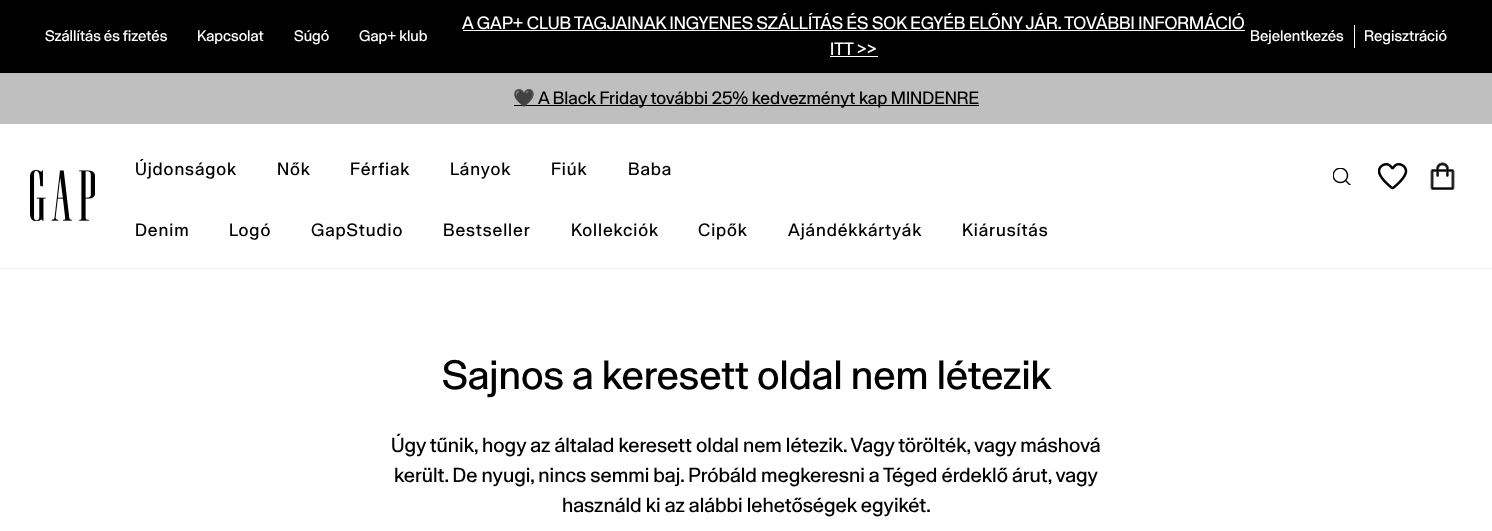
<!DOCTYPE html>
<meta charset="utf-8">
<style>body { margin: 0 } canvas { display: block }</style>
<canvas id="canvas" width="1492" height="531"></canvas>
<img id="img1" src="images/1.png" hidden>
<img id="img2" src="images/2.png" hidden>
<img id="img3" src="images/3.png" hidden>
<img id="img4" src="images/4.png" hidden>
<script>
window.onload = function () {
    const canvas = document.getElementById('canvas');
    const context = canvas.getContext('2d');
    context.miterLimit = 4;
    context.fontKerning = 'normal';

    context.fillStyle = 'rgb(255, 255, 255)';
    context.fillRect(0, 0, 1492, 531);
    context.fillStyle = 'rgb(0, 0, 0)';
    context.fillRect(0, 0, 1492, 73);
    context.fillStyle = 'rgb(255, 255, 255)';
    context.fillRect(463, 30, 782, 1);
    context.fillRect(830, 56, 48, 1);
    context.fillRect(1354, 25, 1, 23);
    context.fillStyle = 'rgb(192, 191, 191)';
    context.fillRect(0, 73, 1492, 51);
    context.fillStyle = 'rgb(0, 0, 0)';
    context.fillRect(514, 105, 465, 1);
    context.drawImage(document.getElementById('img1'), 30, 170, 65, 51);
    context.drawImage(document.getElementById('img2'), 1333, 168, 18, 17);
    context.drawImage(document.getElementById('img3'), 1378, 163, 30, 27);
    context.drawImage(document.getElementById('img4'), 1430, 162, 25, 28);
    context.fillStyle = 'rgb(242, 242, 242)';
    context.fillRect(0, 268, 1492, 1);
    context.font = '15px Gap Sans';
    context.fillStyle = 'rgb(255, 255, 255)';
    context.fillText('Szállítás és fizetés', 45, 41);
    context.fillText('Kapcsolat', 197, 41);
    context.fillText('Súgó', 294, 41);
    context.fillText('Gap+ klub', 359, 41);
    context.font = '17.5px Gap Sans';
    context.fillText('A GAP+ CLUB TAGJAINAK INGYENES SZÁLLÍTÁS ÉS SOK EGYÉB ELŐNY JÁR. TOVÁBBI INFORMÁCIÓ', 462, 29);
    context.fillText('ITT >>', 830, 55);
    context.font = '15px Gap Sans';
    context.fillText('Bejelentkezés', 1250, 41);
    context.fillText('Regisztráció', 1364, 41);
    context.font = '17.5px Noto Color Emoji';
    context.fillStyle = 'rgb(0, 0, 0)';
    context.fillText('🖤', 513, 104);
    context.font = '17.5px Gap Sans';
    context.fillText('A Black Friday további 25% kedvezményt kap MINDENRE', 538, 104);
    context.letterSpacing = '0.9px';
    context.fillText('Újdonságok', 135, 175);
    context.fillText('Nők', 277, 175);
    context.fillText('Férfiak', 350, 175);
    context.fillText('Lányok', 450, 175);
    context.fillText('Fiúk', 551, 175);
    context.fillText('Baba', 628, 175);
    context.fillText('Denim', 135, 236);
    context.fillText('Logó', 229, 236);
    context.fillText('GapStudio', 311, 236);
    context.fillText('Bestseller', 443, 236);
    context.fillText('Kollekciók', 571, 236);
    context.fillText('Cipők', 698, 236);
    context.fillText('Ajándékkártyák', 788, 236);
    context.fillText('Kiárusítás', 962, 236);
    context.letterSpacing = '0px';
    context.font = '40px Gap Sans';
    context.fillText('Sajnos a keresett oldal nem létezik', 442, 389);
    context.font = '20px Gap Sans';
    context.fillText('Úgy tűnik, hogy az általad keresett oldal nem létezik. Vagy törölték, vagy máshová', 391, 452);
    context.fillText('került. De nyugi, nincs semmi baj. Próbáld megkeresni a Téged érdeklő árut, vagy', 394, 482);
    context.fillText('használd ki az alábbi lehetőségek egyikét.', 562, 512);
};
</script>
